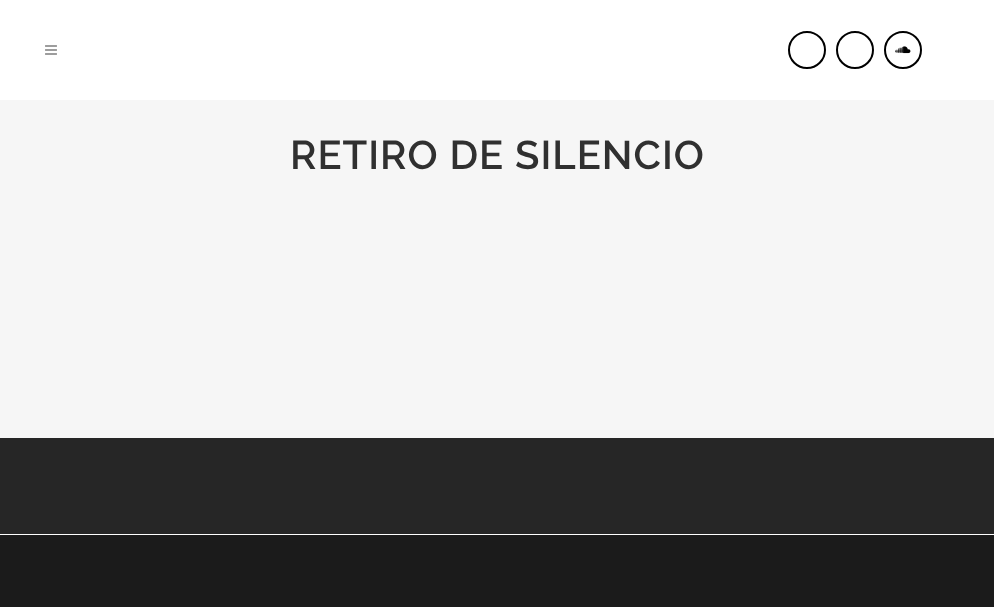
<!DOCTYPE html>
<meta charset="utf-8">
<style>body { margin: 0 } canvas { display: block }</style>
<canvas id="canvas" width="994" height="607"></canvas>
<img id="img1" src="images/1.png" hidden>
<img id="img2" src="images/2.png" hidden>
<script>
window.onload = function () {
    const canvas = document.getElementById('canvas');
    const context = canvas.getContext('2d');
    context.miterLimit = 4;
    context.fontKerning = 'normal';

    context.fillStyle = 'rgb(246, 246, 246)';
    context.fillRect(0, 0, 994, 607);
    context.fillStyle = 'rgb(255, 255, 255)';
    context.fillRect(0, 0, 994, 100);
    context.drawImage(document.getElementById('img1'), 45, 45, 12, 10);
    context.beginPath();
    context.arc(807, 50, 18, 0, 2 * Math.PI);
    context.strokeStyle = 'rgb(0, 0, 0)';
    context.lineWidth = 2;
    context.stroke();
    context.beginPath();
    context.arc(855, 50, 18, 0, 2 * Math.PI);
    context.stroke();
    context.beginPath();
    context.arc(903, 50, 18, 0, 2 * Math.PI);
    context.stroke();
    context.drawImage(document.getElementById('img2'), 895, 46, 16, 8);
    context.fillStyle = 'rgb(38, 38, 38)';
    context.fillRect(0, 438, 994, 96);
    context.fillStyle = 'rgb(27, 27, 27)';
    context.fillRect(0, 535, 994, 72);
    context.fillStyle = 'rgb(255, 255, 255)';
    context.fillRect(0, 534, 994, 1);
    context.letterSpacing = '1px';
    context.font = '600 40px Raleway';
    context.fillStyle = 'rgb(48, 48, 48)';
    context.fillText('RETIRO DE SILENCIO', 290, 169);
};
</script>
